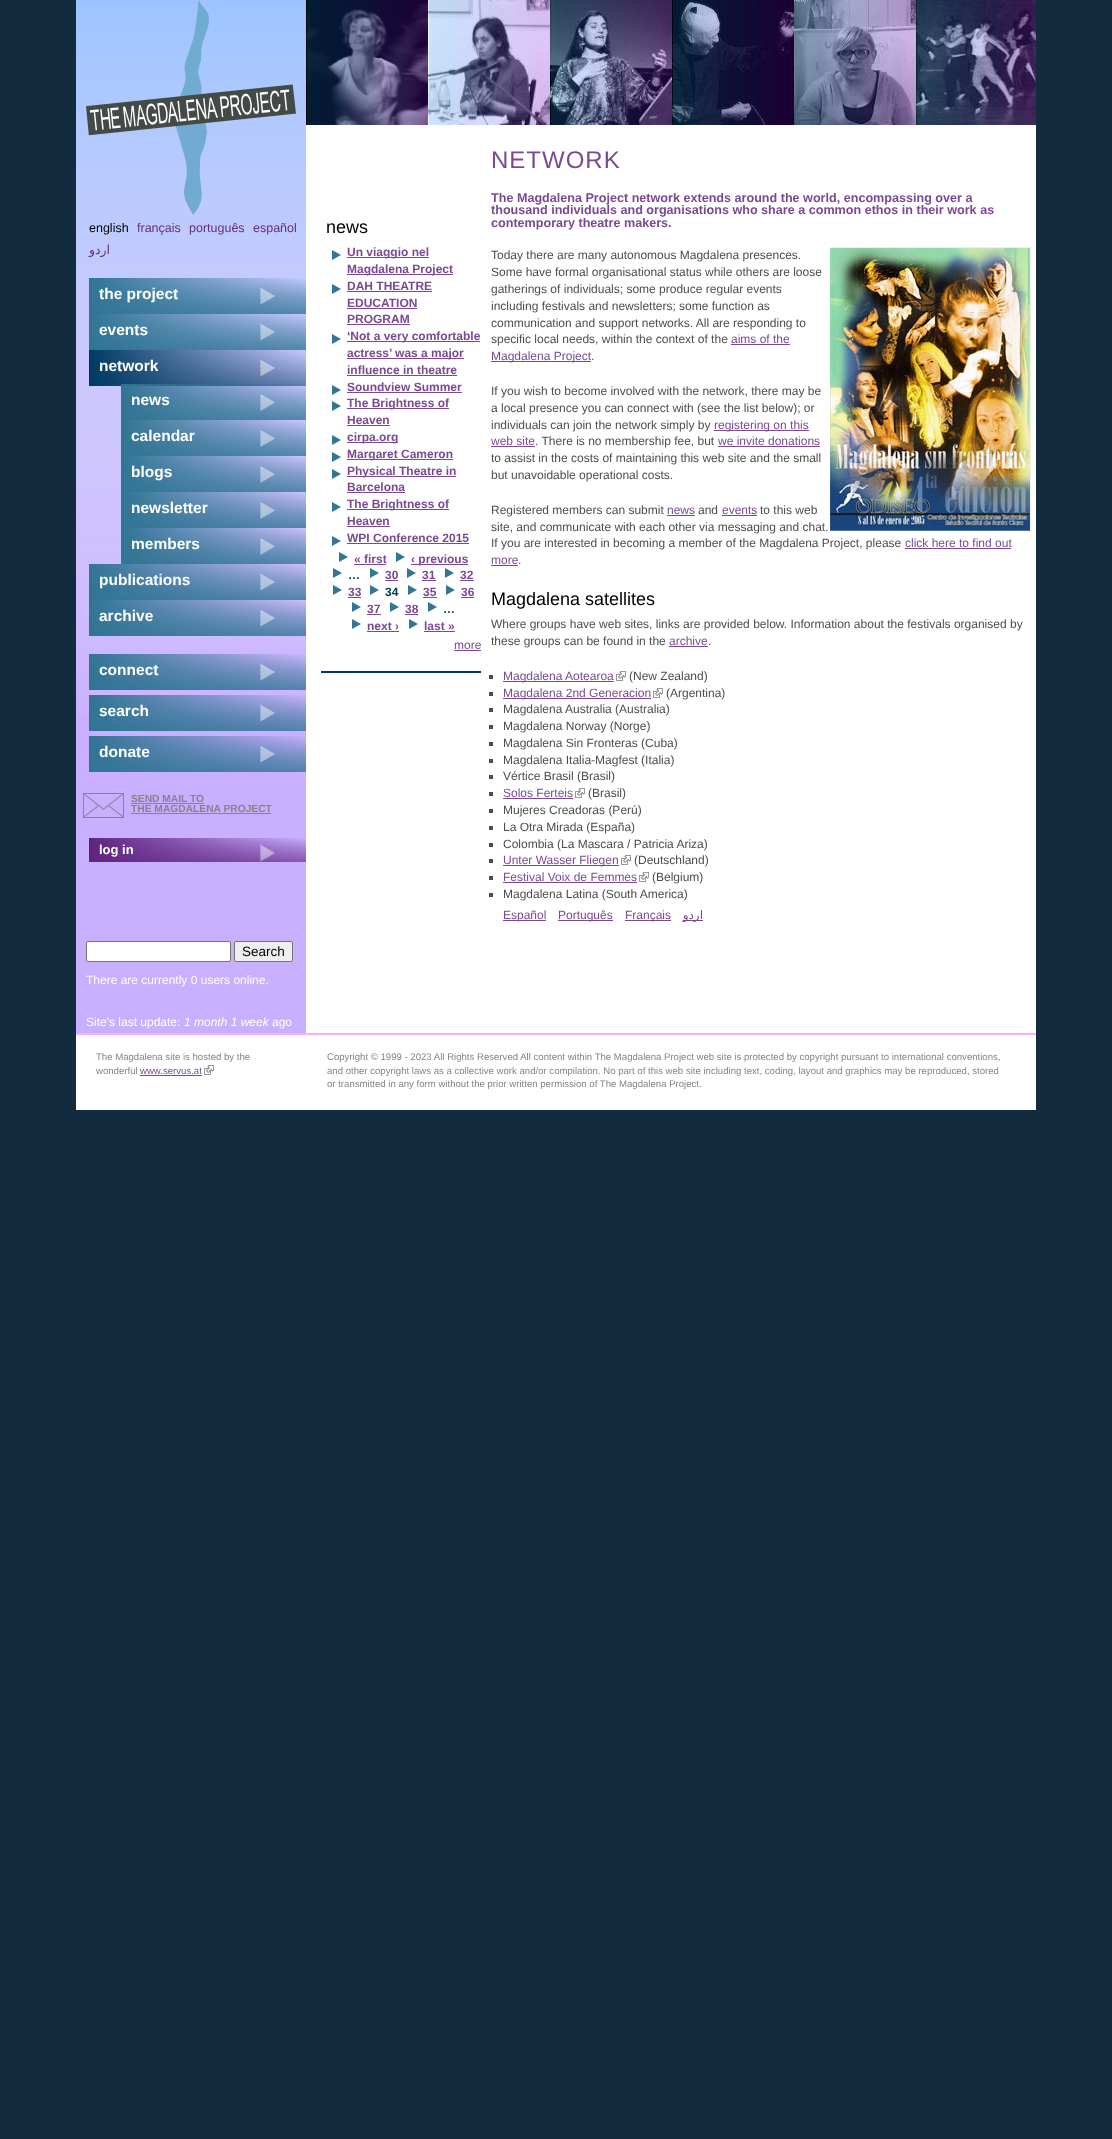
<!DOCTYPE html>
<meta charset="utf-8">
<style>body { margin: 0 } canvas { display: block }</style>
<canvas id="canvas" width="1112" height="2139"></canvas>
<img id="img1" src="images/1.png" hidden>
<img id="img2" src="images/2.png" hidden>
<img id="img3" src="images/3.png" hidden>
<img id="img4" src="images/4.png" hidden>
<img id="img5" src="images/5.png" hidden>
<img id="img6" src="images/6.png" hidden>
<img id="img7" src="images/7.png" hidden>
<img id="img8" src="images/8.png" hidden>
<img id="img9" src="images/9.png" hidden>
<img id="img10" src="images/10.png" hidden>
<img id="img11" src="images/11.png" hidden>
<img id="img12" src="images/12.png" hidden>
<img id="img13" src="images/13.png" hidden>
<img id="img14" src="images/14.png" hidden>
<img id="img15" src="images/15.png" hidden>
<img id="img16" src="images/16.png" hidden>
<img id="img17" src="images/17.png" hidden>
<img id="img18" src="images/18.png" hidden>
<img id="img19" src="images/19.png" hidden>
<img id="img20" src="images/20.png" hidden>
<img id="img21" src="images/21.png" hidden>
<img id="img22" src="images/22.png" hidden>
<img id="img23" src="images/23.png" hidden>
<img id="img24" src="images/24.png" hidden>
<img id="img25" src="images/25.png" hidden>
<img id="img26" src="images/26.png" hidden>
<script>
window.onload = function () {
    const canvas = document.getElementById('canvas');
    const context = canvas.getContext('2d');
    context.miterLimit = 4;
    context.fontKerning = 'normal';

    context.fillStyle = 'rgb(18, 43, 63)';
    context.fillRect(0, 0, 1112, 2139);
    context.fillStyle = 'rgb(255, 255, 255)';
    context.fillRect(306, 125, 730, 908);
    context.fillStyle = 'rgb(200, 175, 255)';
    context.fillRect(76, 5, 230, 1028);
    context.drawImage(document.getElementById('img1'), 76, 0, 230, 715);
    context.drawImage(document.getElementById('img2'), 86, 0, 210, 215);
    context.drawImage(document.getElementById('img3'), 306, 0, 122, 125);
    context.drawImage(document.getElementById('img4'), 428, 0, 122, 125);
    context.drawImage(document.getElementById('img5'), 550, 0, 122, 125);
    context.drawImage(document.getElementById('img6'), 672, 0, 122, 125);
    context.drawImage(document.getElementById('img7'), 794, 0, 122, 125);
    context.drawImage(document.getElementById('img8'), 916, 0, 120, 125);
    context.drawImage(document.getElementById('img9'), 89, 278, 217, 36);
    context.drawImage(document.getElementById('img10'), 89, 314, 217, 36);
    context.drawImage(document.getElementById('img11'), 89, 350, 217, 36);
    context.drawImage(document.getElementById('img12'), 121, 384, 185, 36);
    context.drawImage(document.getElementById('img13'), 121, 420, 185, 36);
    context.drawImage(document.getElementById('img14'), 121, 456, 185, 36);
    context.drawImage(document.getElementById('img15'), 121, 492, 185, 36);
    context.drawImage(document.getElementById('img16'), 121, 528, 185, 36);
    context.drawImage(document.getElementById('img17'), 89, 564, 217, 36);
    context.drawImage(document.getElementById('img18'), 89, 600, 217, 36);
    context.drawImage(document.getElementById('img19'), 89, 654, 217, 36);
    context.drawImage(document.getElementById('img20'), 89, 695, 217, 36);
    context.drawImage(document.getElementById('img21'), 89, 736, 217, 36);
    context.drawImage(document.getElementById('img22'), 83, 793, 41, 25);
    context.fillStyle = 'rgb(134, 133, 133)';
    context.fillRect(131, 803, 73, 1);
    context.fillRect(131, 813, 140, 1);
    context.drawImage(document.getElementById('img23'), 89, 838, 217, 24);
    context.fillStyle = 'rgb(0, 58, 98)';
    context.fillRect(321, 671, 160, 2);
    context.drawImage(document.getElementById('img24'), 332, 250, 9, 10);
    context.fillStyle = 'rgb(123, 73, 148)';
    context.fillRect(347, 257, 82, 1);
    context.fillRect(347, 274, 106, 1);
    context.drawImage(document.getElementById('img24'), 332, 284, 9, 10);
    context.fillRect(347, 291, 85, 1);
    context.fillRect(347, 308, 70, 1);
    context.fillRect(347, 324, 63, 1);
    context.drawImage(document.getElementById('img24'), 332, 334, 9, 10);
    context.fillRect(347, 341, 133, 1);
    context.fillRect(347, 358, 117, 1);
    context.fillRect(347, 375, 110, 1);
    context.drawImage(document.getElementById('img24'), 332, 385, 9, 10);
    context.fillRect(347, 392, 115, 1);
    context.drawImage(document.getElementById('img24'), 332, 401, 9, 10);
    context.fillRect(347, 408, 102, 1);
    context.fillRect(347, 425, 43, 1);
    context.drawImage(document.getElementById('img24'), 332, 435, 9, 10);
    context.fillRect(347, 442, 51, 1);
    context.drawImage(document.getElementById('img24'), 332, 452, 9, 10);
    context.fillRect(347, 459, 106, 1);
    context.drawImage(document.getElementById('img24'), 332, 469, 9, 10);
    context.fillRect(347, 476, 109, 1);
    context.fillRect(347, 492, 58, 1);
    context.drawImage(document.getElementById('img24'), 332, 502, 9, 10);
    context.fillRect(347, 509, 102, 1);
    context.fillRect(347, 526, 43, 1);
    context.drawImage(document.getElementById('img24'), 332, 536, 9, 10);
    context.fillRect(347, 543, 122, 1);
    context.drawImage(document.getElementById('img24'), 339, 552, 9, 10);
    context.fillRect(354, 564, 32, 1);
    context.drawImage(document.getElementById('img24'), 396, 552, 9, 10);
    context.fillRect(411, 564, 57, 1);
    context.drawImage(document.getElementById('img24'), 333, 568, 9, 10);
    context.drawImage(document.getElementById('img24'), 370, 568, 9, 10);
    context.fillRect(385, 580, 13, 1);
    context.drawImage(document.getElementById('img24'), 407, 568, 9, 10);
    context.fillRect(422, 580, 14, 1);
    context.drawImage(document.getElementById('img24'), 445, 568, 9, 10);
    context.fillRect(460, 580, 14, 1);
    context.drawImage(document.getElementById('img24'), 333, 585, 9, 10);
    context.fillRect(348, 597, 13, 1);
    context.drawImage(document.getElementById('img24'), 370, 585, 9, 10);
    context.drawImage(document.getElementById('img24'), 408, 585, 9, 10);
    context.fillRect(423, 597, 14, 1);
    context.drawImage(document.getElementById('img24'), 446, 585, 9, 10);
    context.fillRect(461, 597, 13, 1);
    context.drawImage(document.getElementById('img24'), 352, 602, 9, 10);
    context.fillRect(367, 614, 14, 1);
    context.drawImage(document.getElementById('img24'), 390, 602, 9, 10);
    context.fillRect(405, 614, 13, 1);
    context.drawImage(document.getElementById('img24'), 428, 602, 9, 10);
    context.drawImage(document.getElementById('img24'), 352, 619, 9, 10);
    context.fillRect(367, 631, 32, 1);
    context.drawImage(document.getElementById('img24'), 409, 619, 9, 10);
    context.fillRect(424, 631, 31, 1);
    context.fillRect(454, 650, 27, 1);
    context.fillRect(731, 344, 59, 1);
    context.fillRect(491, 361, 100, 1);
    context.drawImage(document.getElementById('img25'), 830, 247, 201, 284);
    context.fillRect(714, 430, 95, 1);
    context.fillRect(491, 446, 44, 1);
    context.fillRect(718, 446, 102, 1);
    context.fillRect(667, 515, 28, 1);
    context.fillRect(722, 515, 35, 1);
    context.fillRect(905, 548, 106, 1);
    context.fillRect(491, 565, 27, 1);
    context.fillRect(669, 646, 39, 1);
    context.fillStyle = 'rgb(77, 77, 77)';
    context.fillRect(489, 675, 4, 4);
    context.fillStyle = 'rgb(123, 73, 148)';
    context.fillRect(503, 681, 111, 1);
    context.drawImage(document.getElementById('img26'), 616, 671, 10, 10);
    context.fillStyle = 'rgb(77, 77, 77)';
    context.fillRect(489, 692, 4, 4);
    context.fillStyle = 'rgb(123, 73, 148)';
    context.fillRect(503, 698, 148, 1);
    context.drawImage(document.getElementById('img26'), 653, 688, 10, 10);
    context.fillStyle = 'rgb(77, 77, 77)';
    context.fillRect(489, 708, 4, 4);
    context.fillRect(489, 725, 4, 4);
    context.fillRect(489, 742, 4, 4);
    context.fillRect(489, 759, 4, 4);
    context.fillRect(489, 775, 4, 4);
    context.fillRect(489, 792, 4, 4);
    context.fillStyle = 'rgb(123, 73, 148)';
    context.fillRect(503, 798, 70, 1);
    context.drawImage(document.getElementById('img26'), 575, 788, 10, 10);
    context.fillStyle = 'rgb(77, 77, 77)';
    context.fillRect(489, 809, 4, 4);
    context.fillRect(489, 826, 4, 4);
    context.fillRect(489, 843, 4, 4);
    context.fillRect(489, 859, 4, 4);
    context.fillStyle = 'rgb(123, 73, 148)';
    context.fillRect(503, 865, 116, 1);
    context.drawImage(document.getElementById('img26'), 621, 855, 10, 10);
    context.fillStyle = 'rgb(77, 77, 77)';
    context.fillRect(489, 876, 4, 4);
    context.fillStyle = 'rgb(123, 73, 148)';
    context.fillRect(503, 882, 134, 1);
    context.drawImage(document.getElementById('img26'), 639, 872, 10, 10);
    context.fillStyle = 'rgb(77, 77, 77)';
    context.fillRect(489, 893, 4, 4);
    context.fillStyle = 'rgb(123, 73, 148)';
    context.fillRect(503, 920, 43, 1);
    context.fillRect(558, 920, 55, 1);
    context.fillRect(625, 920, 46, 1);
    context.fillRect(683, 920, 20, 1);
    context.fillStyle = 'rgb(255, 255, 255)';
    context.beginPath();
    context.roundRect(86.5, 941.5, 144, 20, 1.5);
    context.fill();
    context.strokeStyle = 'rgb(118, 118, 118)';
    context.stroke();
    context.fillStyle = 'rgb(239, 239, 239)';
    context.beginPath();
    context.roundRect(234.5, 941.5, 58, 20, 1.5);
    context.fill();
    context.stroke();
    context.fillStyle = 'rgb(255, 255, 255)';
    context.fillRect(76, 1035, 960, 75);
    context.fillStyle = 'rgb(255, 171, 255)';
    context.fillRect(76, 1033, 960, 2);
    context.fillStyle = 'rgb(123, 73, 148)';
    context.fillRect(140, 1075, 62, 1);
    context.drawImage(document.getElementById('img26'), 204, 1065, 10, 10);
    context.font = '12.5px Liberation Sans';
    context.fillStyle = 'rgb(0, 0, 0)';
    context.fillText('english', 89, 232);
    context.fillStyle = 'rgb(102, 45, 133)';
    context.fillText('français', 137, 232);
    context.fillText('português', 189, 232);
    context.fillText('español', 253, 232);
    context.direction = 'rtl';
    context.font = '12.5px DejaVu Sans';
    context.fillText('اردو', 110, 254);
    context.direction = 'ltr';
    context.font = 'bold 15.5px Liberation Sans';
    context.fillStyle = 'rgb(255, 255, 255)';
    context.fillText('the project', 99, 299);
    context.fillText('events', 99, 335);
    context.fillText('network', 99, 371);
    context.fillText('news', 131, 405);
    context.fillText('calendar', 131, 441);
    context.fillText('blogs', 131, 477);
    context.fillText('newsletter', 131, 513);
    context.fillText('members', 131, 549);
    context.fillText('publications', 99, 585);
    context.fillText('archive', 99, 621);
    context.fillText('connect', 99, 675);
    context.fillText('search', 99, 716);
    context.fillText('donate', 99, 757);
    context.font = 'bold 10.25px Liberation Sans';
    context.fillStyle = 'rgb(134, 133, 133)';
    context.fillText('SEND MAIL TO', 131, 802);
    context.fillText('THE MAGDALENA PROJECT', 131, 812);
    context.font = 'bold 13px Liberation Sans';
    context.fillStyle = 'rgb(255, 255, 255)';
    context.fillText('log in', 99, 854);
    context.font = '18px Liberation Sans';
    context.fillStyle = 'rgb(0, 0, 0)';
    context.fillText('news', 326, 233);
    context.font = 'bold 12px Liberation Sans';
    context.fillStyle = 'rgb(123, 73, 148)';
    context.fillText('Un viaggio nel', 347, 256);
    context.fillText('Magdalena Project', 347, 273);
    context.fillText('DAH THEATRE', 347, 290);
    context.fillText('EDUCATION', 347, 307);
    context.fillText('PROGRAM', 347, 323);
    context.fillText('‘Not a very comfortable', 347, 340);
    context.fillText('actress’ was a major', 347, 357);
    context.fillText('influence in theatre', 347, 374);
    context.fillText('Soundview Summer', 347, 391);
    context.fillText('The Brightness of', 347, 407);
    context.fillText('Heaven', 347, 424);
    context.fillText('cirpa.org', 347, 441);
    context.fillText('Margaret Cameron', 347, 458);
    context.fillText('Physical Theatre in', 347, 475);
    context.fillText('Barcelona', 347, 491);
    context.fillText('The Brightness of', 347, 508);
    context.fillText('Heaven', 347, 525);
    context.fillText('WPI Conference 2015', 347, 542);
    context.fillText('« first', 354, 563);
    context.fillText('‹ previous', 411, 563);
    context.fillStyle = 'rgb(0, 58, 98)';
    context.fillText('…', 348, 579);
    context.fillStyle = 'rgb(123, 73, 148)';
    context.fillText('30', 385, 579);
    context.fillText('31', 422, 579);
    context.fillText('32', 460, 579);
    context.fillText('33', 348, 596);
    context.fillStyle = 'rgb(0, 58, 98)';
    context.fillText('34', 385, 596);
    context.fillStyle = 'rgb(123, 73, 148)';
    context.fillText('35', 423, 596);
    context.fillText('36', 461, 596);
    context.fillText('37', 367, 613);
    context.fillText('38', 405, 613);
    context.fillStyle = 'rgb(0, 58, 98)';
    context.fillText('…', 443, 613);
    context.fillStyle = 'rgb(123, 73, 148)';
    context.fillText('next ›', 367, 630);
    context.fillText('last »', 424, 630);
    context.font = '12px Liberation Sans';
    context.fillText('more', 454, 649);
    context.letterSpacing = '1px';
    context.font = '24px Liberation Sans';
    context.fillText('NETWORK', 491, 168);
    context.letterSpacing = '0px';
    context.font = 'bold 12.6px Liberation Sans';
    context.fillText('The Magdalena Project network extends around the world, encompassing over a', 491, 202);
    context.fillText('thousand individuals and organisations who share a common ethos in their work as', 491, 214);
    context.fillText('contemporary theatre makers.', 491, 227);
    context.font = '12px Liberation Sans';
    context.fillStyle = 'rgb(77, 77, 77)';
    context.fillText('Today there are many autonomous Magdalena presences.', 491, 259);
    context.fillText('Some have formal organisational status while others are loose', 491, 276);
    context.fillText('gatherings of individuals; some produce regular events', 491, 293);
    context.fillText('including festivals and newsletters; some function as', 491, 310);
    context.fillText('communication and support networks. All are responding to', 491, 327);
    context.fillText('specific local needs, within the context of the', 491, 343);
    context.fillStyle = 'rgb(123, 73, 148)';
    context.fillText('aims of the', 731, 343);
    context.fillText('Magdalena Project', 491, 360);
    context.fillStyle = 'rgb(77, 77, 77)';
    context.fillText('.', 591, 360);
    context.fillText('If you wish to become involved with the network, there may be', 491, 395);
    context.fillText('a local presence you can connect with (see the list below); or', 491, 412);
    context.fillText('individuals can join the network simply by', 491, 429);
    context.fillStyle = 'rgb(123, 73, 148)';
    context.fillText('registering on this', 714, 429);
    context.fillText('web site', 491, 445);
    context.fillStyle = 'rgb(77, 77, 77)';
    context.fillText('. There is no membership fee, but', 535, 445);
    context.fillStyle = 'rgb(123, 73, 148)';
    context.fillText('we invite donations', 718, 445);
    context.fillStyle = 'rgb(77, 77, 77)';
    context.fillText('to assist in the costs of maintaining this web site and the small', 491, 462);
    context.fillText('but unavoidable operational costs.', 491, 479);
    context.fillText('Registered members can submit', 491, 514);
    context.fillStyle = 'rgb(123, 73, 148)';
    context.fillText('news', 667, 514);
    context.fillStyle = 'rgb(77, 77, 77)';
    context.fillText('and', 698, 514);
    context.fillStyle = 'rgb(123, 73, 148)';
    context.fillText('events', 722, 514);
    context.fillStyle = 'rgb(77, 77, 77)';
    context.fillText('to this web', 760, 514);
    context.fillText('site, and communicate with each other via messaging and chat.', 491, 531);
    context.fillText('If you are interested in becoming a member of the Magdalena Project, please', 491, 547);
    context.fillStyle = 'rgb(123, 73, 148)';
    context.fillText('click here to find out', 905, 547);
    context.fillText('more', 491, 564);
    context.fillStyle = 'rgb(77, 77, 77)';
    context.fillText('.', 518, 564);
    context.font = '18px Liberation Sans';
    context.fillStyle = 'rgb(0, 0, 0)';
    context.fillText('Magdalena satellites', 491, 605);
    context.font = '12px Liberation Sans';
    context.fillStyle = 'rgb(77, 77, 77)';
    context.fillText('Where groups have web sites, links are provided below. Information about the festivals organised by', 491, 628);
    context.fillText('these groups can be found in the', 491, 645);
    context.fillStyle = 'rgb(123, 73, 148)';
    context.fillText('archive', 669, 645);
    context.fillStyle = 'rgb(77, 77, 77)';
    context.fillText('.', 708, 645);
    context.fillStyle = 'rgb(123, 73, 148)';
    context.fillText('Magdalena Aotearoa', 503, 680);
    context.fillStyle = 'rgb(77, 77, 77)';
    context.fillText('(New Zealand)', 629, 680);
    context.fillStyle = 'rgb(123, 73, 148)';
    context.fillText('Magdalena 2nd Generacion', 503, 697);
    context.fillStyle = 'rgb(77, 77, 77)';
    context.fillText('(Argentina)', 666, 697);
    context.fillText('Magdalena Australia (Australia)', 503, 713);
    context.fillText('Magdalena Norway (Norge)', 503, 730);
    context.fillText('Magdalena Sin Fronteras (Cuba)', 503, 747);
    context.fillText('Magdalena Italia-Magfest (Italia)', 503, 764);
    context.fillText('Vértice Brasil (Brasil)', 503, 780);
    context.fillStyle = 'rgb(123, 73, 148)';
    context.fillText('Solos Ferteis', 503, 797);
    context.fillStyle = 'rgb(77, 77, 77)';
    context.fillText('(Brasil)', 588, 797);
    context.fillText('Mujeres Creadoras (Perú)', 503, 814);
    context.fillText('La Otra Mirada (España)', 503, 831);
    context.fillText('Colombia (La Mascara / Patricia Ariza)', 503, 848);
    context.fillStyle = 'rgb(123, 73, 148)';
    context.fillText('Unter Wasser Fliegen', 503, 864);
    context.fillStyle = 'rgb(77, 77, 77)';
    context.fillText('(Deutschland)', 634, 864);
    context.fillStyle = 'rgb(123, 73, 148)';
    context.fillText('Festival Voix de Femmes', 503, 881);
    context.fillStyle = 'rgb(77, 77, 77)';
    context.fillText('(Belgium)', 652, 881);
    context.fillText('Magdalena Latina (South America)', 503, 898);
    context.fillStyle = 'rgb(123, 73, 148)';
    context.fillText('Español', 503, 919);
    context.fillText('Português', 558, 919);
    context.fillText('Français', 625, 919);
    context.direction = 'rtl';
    context.font = '12px DejaVu Sans';
    context.fillText('اردو', 703, 919);
    context.direction = 'ltr';
    context.font = '13.5px Liberation Sans';
    context.fillStyle = 'rgb(0, 0, 0)';
    context.fillText('Search', 242, 956);
    context.font = '12px Liberation Sans';
    context.fillStyle = 'rgb(255, 255, 255)';
    context.fillText('There are currently 0 users online.', 86, 984);
    context.fillText('Site\'s last update:', 86, 1026);
    context.font = 'italic 12px Liberation Sans';
    context.fillText('1 month 1 week', 184, 1026);
    context.font = '12px Liberation Sans';
    context.fillText('ago', 272, 1026);
    context.font = '9.6px Liberation Sans';
    context.fillStyle = 'rgb(134, 133, 133)';
    context.fillText('The Magdalena site is hosted by the', 96, 1060);
    context.fillText('wonderful', 96, 1074);
    context.fillStyle = 'rgb(123, 73, 148)';
    context.fillText('www.servus.at', 140, 1074);
    context.fillStyle = 'rgb(134, 133, 133)';
    context.fillText('Copyright © 1999 - 2023 All Rights Reserved All content within The Magdalena Project web site is protected by copyright pursuant to international conventions,', 327, 1060);
    context.fillText('and other copyright laws as a collective work and/or compilation. No part of this web site including text, coding, layout and graphics may be reproduced, stored', 327, 1074);
    context.fillText('or transmitted in any form without the prior written permission of The Magdalena Project.', 327, 1087);
};
</script>
